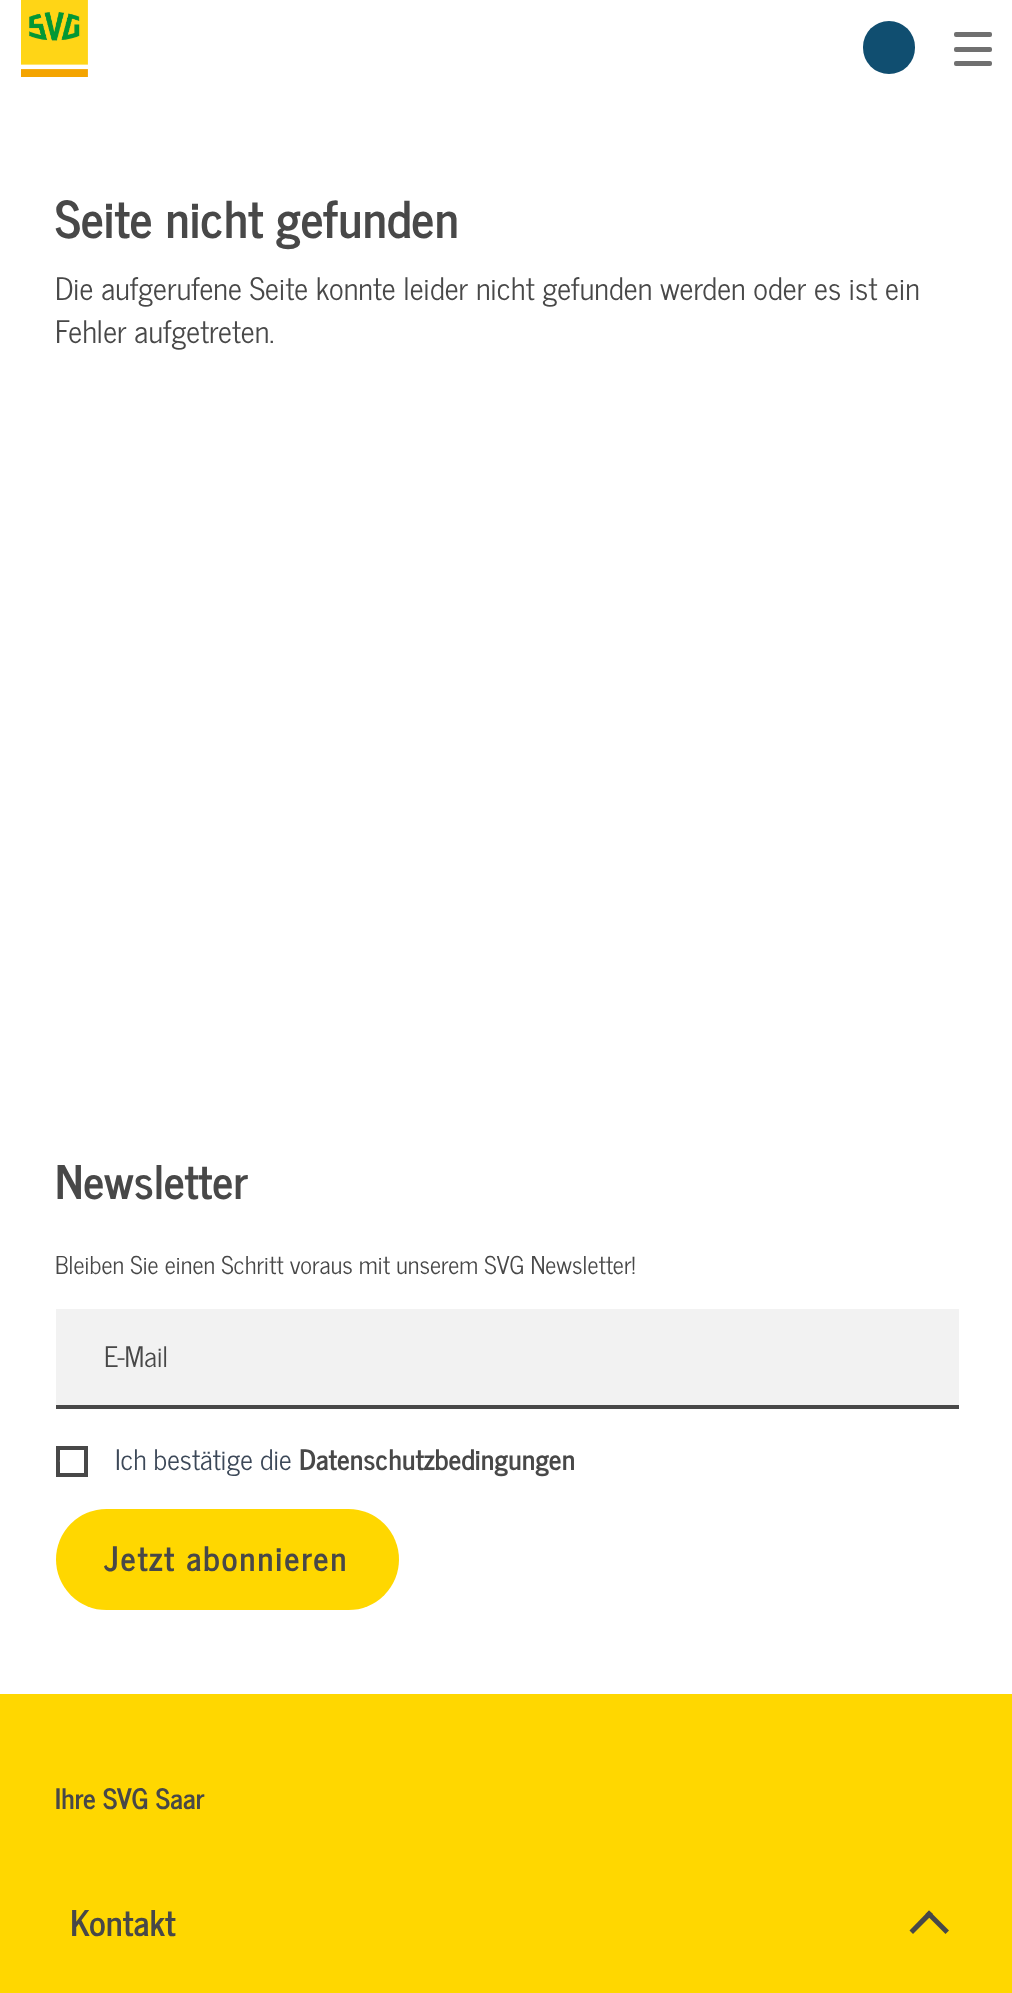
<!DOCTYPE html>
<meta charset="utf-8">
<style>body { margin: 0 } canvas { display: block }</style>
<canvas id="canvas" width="1012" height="1993"></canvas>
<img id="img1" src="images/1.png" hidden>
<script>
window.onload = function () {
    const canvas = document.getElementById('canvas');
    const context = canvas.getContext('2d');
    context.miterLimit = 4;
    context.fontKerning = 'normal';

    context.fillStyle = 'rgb(255, 255, 255)';
    context.fillRect(0, 0, 1012, 1993);
    context.fillStyle = 'rgb(16, 78, 112)';
    context.beginPath();
    context.roundRect(863, 21, 52, 53, 26);
    context.fill();
    context.drawImage(document.getElementById('img1'), 21, 0, 67, 77);
    context.fillStyle = 'rgb(112, 112, 112)';
    context.beginPath();
    context.roundRect(954, 32, 38, 5, 2);
    context.fill();
    context.beginPath();
    context.roundRect(954, 47, 38, 5, 2);
    context.fill();
    context.beginPath();
    context.roundRect(954, 61, 38, 5, 2);
    context.fill();
    context.fillStyle = 'rgb(255, 215, 0)';
    context.fillRect(0, 1694, 1012, 299);
    context.fillStyle = 'rgb(72, 72, 72)';
    context.beginPath();
    context.moveTo(929, 1910.5);
    context.lineTo(949, 1930.5);
    context.lineTo(945.5, 1934);
    context.lineTo(925.5, 1914);
    context.closePath();
    context.fill();
    context.beginPath();
    context.moveTo(929, 1910.5);
    context.lineTo(933, 1914);
    context.lineTo(913, 1934);
    context.lineTo(909.5, 1930.5);
    context.closePath();
    context.fill();
    context.fillStyle = 'rgb(242, 242, 242)';
    context.fillRect(56, 1309, 903, 96);
    context.fillStyle = 'rgb(72, 72, 72)';
    context.fillRect(56, 1405, 903, 4);
    context.strokeStyle = 'rgb(72, 72, 72)';
    context.lineWidth = 4;
    context.strokeRect(58, 1448, 28, 27);
    context.fillStyle = 'rgb(255, 255, 255)';
    context.beginPath();
    context.moveTo(62, 1458.5);
    context.lineTo(71, 1467.5);
    context.lineTo(68.5, 1470);
    context.lineTo(59.5, 1461);
    context.closePath();
    context.fill();
    context.fillStyle = 'rgb(255, 215, 0)';
    context.beginPath();
    context.roundRect(56, 1509, 343, 101, 50.5);
    context.fill();
    context.font = 'bold 50.5px News Cycle';
    context.fillStyle = 'rgb(72, 72, 72)';
    context.fillText('Seite nicht gefunden', 55, 238);
    context.font = '30.8px News Cycle';
    context.fillText('Die aufgerufene Seite konnte leider nicht gefunden werden oder es ist ein', 55, 300);
    context.fillText('Fehler aufgetreten.', 55, 343);
    context.font = 'bold 35px News Cycle';
    context.fillText('Kontakt', 70, 1936);
    context.font = 'bold 46px News Cycle';
    context.fillText('Newsletter', 55, 1199);
    context.font = '24.5px News Cycle';
    context.fillText('Bleiben Sie einen Schritt voraus mit unserem SVG Newsletter!', 55, 1274);
    context.font = '28px News Cycle';
    context.fillText('E-Mail', 104, 1367);
    context.fillStyle = 'rgb(60, 72, 88)';
    context.fillText('Ich bestätige die', 115, 1470);
    context.font = 'bold 28px News Cycle';
    context.fillStyle = 'rgb(72, 72, 72)';
    context.fillText('Datenschutzbedingungen', 299, 1470);
    context.letterSpacing = '1.8px';
    context.font = 'bold 33.5px News Cycle';
    context.fillText('Jetzt abonnieren', 104, 1571);
    context.letterSpacing = '0px';
    context.font = 'bold 28px News Cycle';
    context.fillText('Ihre SVG Saar', 55, 1809);
};
</script>
